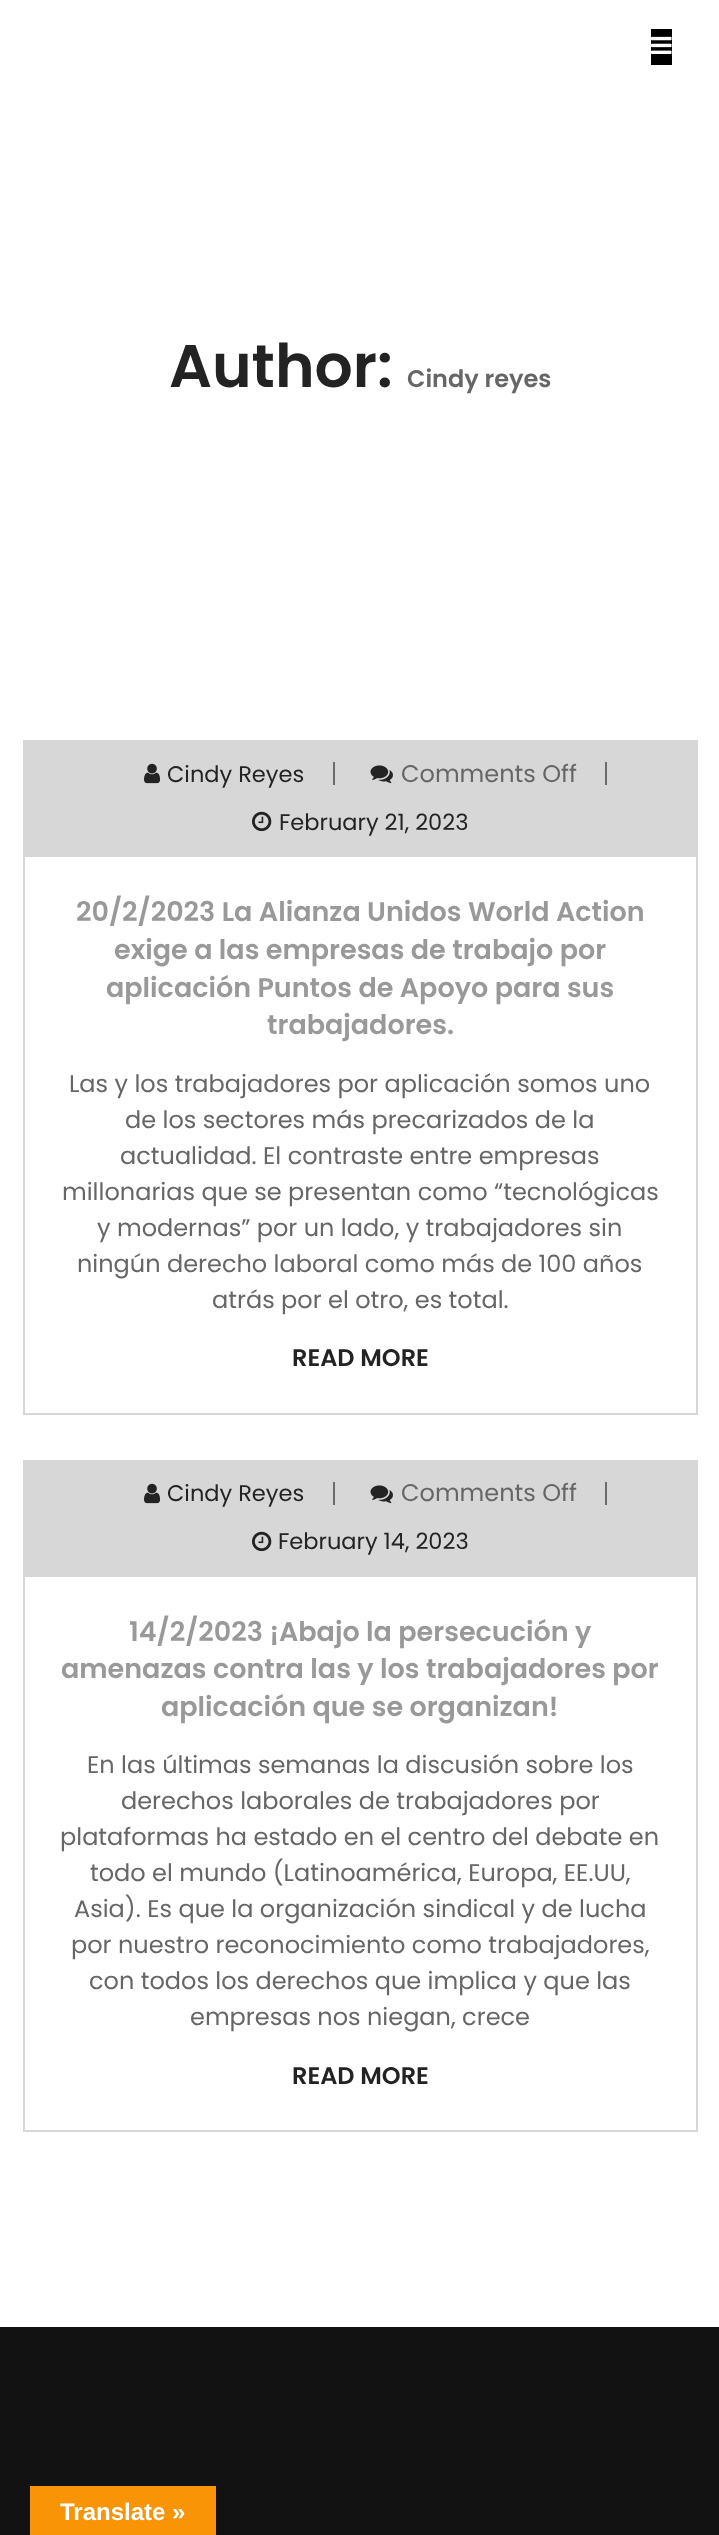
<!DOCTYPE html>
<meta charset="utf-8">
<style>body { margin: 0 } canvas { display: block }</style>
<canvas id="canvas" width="719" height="2535"></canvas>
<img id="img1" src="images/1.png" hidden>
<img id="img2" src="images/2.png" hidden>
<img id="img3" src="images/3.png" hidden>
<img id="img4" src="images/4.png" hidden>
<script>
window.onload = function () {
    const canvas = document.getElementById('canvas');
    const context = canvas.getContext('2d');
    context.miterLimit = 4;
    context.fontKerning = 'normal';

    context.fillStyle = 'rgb(255, 255, 255)';
    context.fillRect(0, 0, 719, 2535);
    context.fillStyle = 'rgb(0, 0, 0)';
    context.fillRect(651, 29, 21, 36);
    context.drawImage(document.getElementById('img1'), 651, 36, 21, 18);
    context.fillStyle = 'rgb(215, 215, 215)';
    context.fillRect(23, 740, 675, 115);
    context.drawImage(document.getElementById('img2'), 144, 763, 17, 21);
    context.fillStyle = 'rgb(108, 108, 108)';
    context.fillRect(333, 762, 2, 23);
    context.drawImage(document.getElementById('img3'), 370, 765, 23, 19);
    context.fillRect(605, 762, 2, 23);
    context.drawImage(document.getElementById('img4'), 252, 811, 20, 21);
    context.strokeStyle = 'rgb(215, 215, 215)';
    context.lineWidth = 2;
    context.strokeRect(24, 856, 673, 558);
    context.fillStyle = 'rgb(215, 215, 215)';
    context.fillRect(23, 1460, 675, 115);
    context.drawImage(document.getElementById('img2'), 144, 1483, 17, 21);
    context.fillStyle = 'rgb(108, 108, 108)';
    context.fillRect(333, 1482, 2, 23);
    context.drawImage(document.getElementById('img3'), 370, 1485, 23, 19);
    context.fillRect(605, 1482, 2, 23);
    context.drawImage(document.getElementById('img4'), 252, 1531, 20, 21);
    context.strokeRect(24, 1576, 673, 555);
    context.fillStyle = 'rgb(18, 18, 18)';
    context.fillRect(0, 2327, 719, 208);
    context.fillStyle = 'rgb(248, 148, 6)';
    context.fillRect(30, 2486, 186, 49);
    context.font = '600 60px Poppins';
    context.fillStyle = 'rgb(35, 35, 35)';
    context.fillText('Author:', 169, 387);
    context.font = '600 24px Poppins';
    context.fillStyle = 'rgb(102, 102, 102)';
    context.fillText('Cindy reyes', 407, 387);
    context.font = '22.5px Poppins';
    context.fillStyle = 'rgb(35, 35, 35)';
    context.fillText('Cindy Reyes', 167, 782);
    context.font = '24px Poppins';
    context.fillStyle = 'rgb(102, 102, 102)';
    context.fillText('Comments Off', 401, 782);
    context.font = '22.5px Poppins';
    context.fillStyle = 'rgb(35, 35, 35)';
    context.fillText('February 21, 2023', 279, 830);
    context.font = '600 27px Poppins';
    context.fillStyle = 'rgb(153, 153, 153)';
    context.fillText('20/2/2023 La Alianza Unidos World Action', 76, 921);
    context.fillText('exige a las empresas de trabajo por', 114, 959);
    context.fillText('aplicación Puntos de Apoyo para sus', 106, 997);
    context.fillText('trabajadores.', 267, 1034);
    context.font = '24px Poppins';
    context.fillStyle = 'rgb(102, 102, 102)';
    context.fillText('Las y los trabajadores por aplicación somos uno', 69, 1092);
    context.fillText('de los sectores más precarizados de la', 125, 1128);
    context.fillText('actualidad. El contraste entre empresas', 120, 1164);
    context.fillText('millonarias que se presentan como “tecnológicas', 62, 1200);
    context.fillText('y modernas” por un lado, y trabajadores sin', 97, 1236);
    context.fillText('ningún derecho laboral como más de 100 años', 77, 1272);
    context.fillText('atrás por el otro, es total.', 212, 1308);
    context.font = '600 24px Poppins';
    context.fillStyle = 'rgb(35, 35, 35)';
    context.fillText('READ MORE', 292, 1366);
    context.font = '22.5px Poppins';
    context.fillText('Cindy Reyes', 167, 1501);
    context.font = '24px Poppins';
    context.fillStyle = 'rgb(102, 102, 102)';
    context.fillText('Comments Off', 401, 1501);
    context.font = '22.5px Poppins';
    context.fillStyle = 'rgb(35, 35, 35)';
    context.fillText('February 14, 2023', 278, 1549);
    context.font = '600 27px Poppins';
    context.fillStyle = 'rgb(153, 153, 153)';
    context.fillText('14/2/2023 ¡Abajo la persecución y', 129, 1641);
    context.fillText('amenazas contra las y los trabajadores por', 61, 1678);
    context.fillText('aplicación que se organizan!', 161, 1716);
    context.font = '24px Poppins';
    context.fillStyle = 'rgb(102, 102, 102)';
    context.fillText('En las últimas semanas la discusión sobre los', 87, 1773);
    context.fillText('derechos laborales de trabajadores por', 121, 1809);
    context.fillText('plataformas ha estado en el centro del debate en', 60, 1845);
    context.fillText('todo el mundo (Latinoamérica, Europa, EE.UU,', 90, 1881);
    context.fillText('Asia). Es que la organización sindical y de lucha', 74, 1917);
    context.fillText('por nuestro reconocimiento como trabajadores,', 71, 1953);
    context.fillText('con todos los derechos que implica y que las', 89, 1989);
    context.fillText('empresas nos niegan, crece', 190, 2025);
    context.font = '600 24px Poppins';
    context.fillStyle = 'rgb(35, 35, 35)';
    context.fillText('READ MORE', 292, 2084);
    context.font = 'bold 24px Liberation Sans';
    context.fillStyle = 'rgb(255, 255, 255)';
    context.fillText('Translate »', 60, 2520);
};
</script>
